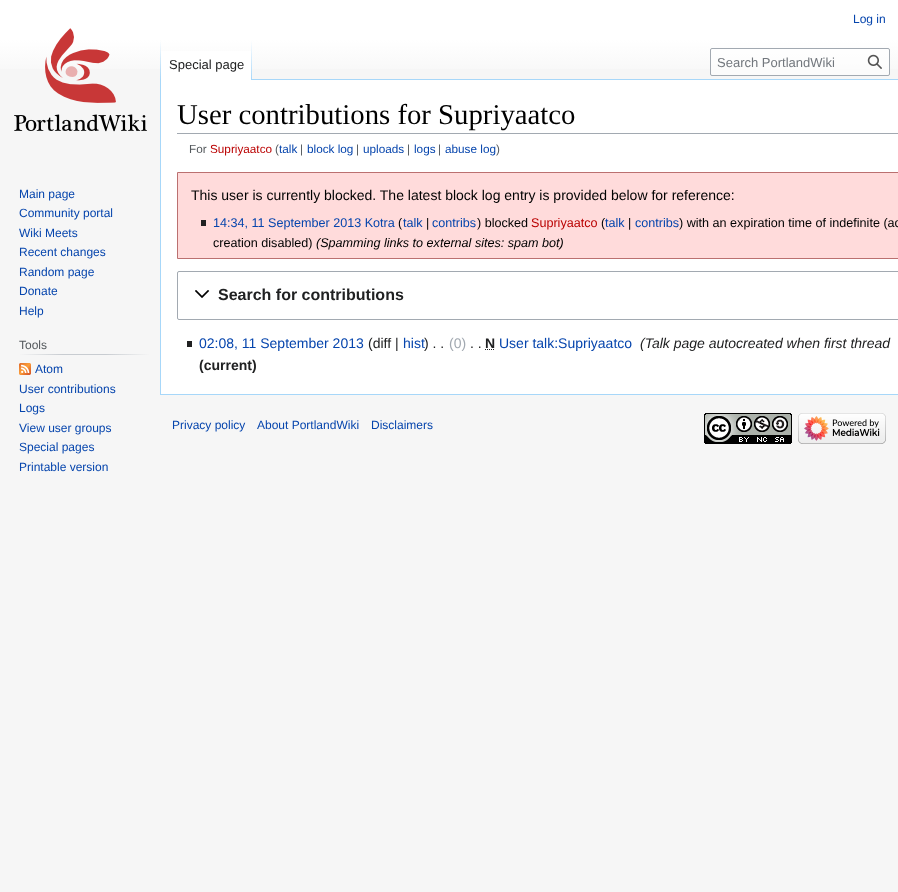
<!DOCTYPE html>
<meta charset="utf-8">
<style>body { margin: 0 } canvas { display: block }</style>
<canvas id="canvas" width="898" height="892"></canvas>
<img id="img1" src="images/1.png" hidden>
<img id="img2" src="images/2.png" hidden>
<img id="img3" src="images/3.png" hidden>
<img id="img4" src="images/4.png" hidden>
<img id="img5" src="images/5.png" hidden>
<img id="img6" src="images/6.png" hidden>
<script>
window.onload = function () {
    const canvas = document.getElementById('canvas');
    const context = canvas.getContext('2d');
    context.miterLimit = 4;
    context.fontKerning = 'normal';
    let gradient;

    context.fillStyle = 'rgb(246, 246, 246)';
    context.fillRect(0, 0, 898, 892);
    gradient = context.createLinearGradient(449, 0, 449, 80);
    gradient.addColorStop(0.5, 'rgb(255, 255, 255)');
    gradient.addColorStop(1, 'rgb(246, 246, 246)');
    context.fillStyle = gradient;
    context.fillRect(0, 0, 898, 69);
    context.fillStyle = 'rgb(167, 215, 249)';
    context.fillRect(160, 394, 738, 1);
    context.fillRect(160, 79, 1, 316);
    gradient = context.createLinearGradient(161, 40, 161, 80);
    gradient.addColorStop(0, 'rgba(167, 215, 249, 0)');
    gradient.addColorStop(1, 'rgb(167, 215, 249)');
    context.fillStyle = gradient;
    context.fillRect(160, 40, 1, 40);
    context.fillStyle = 'rgb(255, 255, 255)';
    context.fillRect(161, 51, 90, 29);
    gradient = context.createLinearGradient(252, 40, 252, 80);
    gradient.addColorStop(0, 'rgb(255, 255, 255)');
    gradient.addColorStop(1, 'rgb(167, 215, 249)');
    context.fillStyle = gradient;
    context.fillRect(251, 40, 1, 40);
    context.fillStyle = 'rgba(255, 255, 255, 0.5)';
    context.beginPath();
    context.roundRect(710.5, 48.5, 179, 27, 1.5);
    context.fill();
    context.strokeStyle = 'rgb(162, 169, 177)';
    context.stroke();
    context.drawImage(document.getElementById('img1'), 867, 54, 15, 15);
    context.drawImage(document.getElementById('img2'), 14, 28, 133, 104);
    gradient = context.createLinearGradient(19, 355, 150, 355);
    gradient.addColorStop(0, 'rgb(246, 246, 246)');
    gradient.addColorStop(0.33, 'rgb(200, 204, 209)');
    gradient.addColorStop(0.66, 'rgb(200, 204, 209)');
    gradient.addColorStop(1, 'rgb(246, 246, 246)');
    context.fillStyle = gradient;
    context.fillRect(19, 354, 131, 1);
    context.drawImage(document.getElementById('img3'), 19, 363, 12, 12);
    context.fillStyle = 'rgb(255, 255, 255)';
    context.fillRect(161, 80, 737, 314);
    context.fillStyle = 'rgb(167, 215, 249)';
    context.fillRect(252, 79, 646, 1);
    context.fillStyle = 'rgb(162, 169, 177)';
    context.fillRect(177, 133, 721, 1);
    context.fillStyle = 'rgb(255, 219, 219)';
    context.beginPath();
    context.rect(177.5, 172.5, 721, 86);
    context.fill();
    context.strokeStyle = 'rgb(187, 112, 112)';
    context.stroke();
    context.fillStyle = 'rgb(32, 33, 34)';
    context.fillRect(201, 220, 5, 6);
    context.beginPath();
    context.roundRect(177.5, 271.5, 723, 48, 1.5);
    context.strokeStyle = 'rgb(162, 169, 177)';
    context.stroke();
    context.drawImage(document.getElementById('img4'), 195, 290, 15, 8);
    context.fillRect(187, 341, 5, 6);
    context.beginPath();
    context.moveTo(485, 349.5);
    context.lineTo(495, 349.5);
    context.strokeStyle = 'rgb(32, 33, 34)';
    context.setLineDash([1, 1]);
    context.stroke();
    context.drawImage(document.getElementById('img5'), 704, 413, 88, 31);
    context.drawImage(document.getElementById('img6'), 798, 413, 88, 31);
    context.font = '12px Liberation Sans';
    context.fillStyle = 'rgb(6, 69, 173)';
    context.fillText('Log in', 853, 23);
    context.font = '13px Liberation Sans';
    context.fillStyle = 'rgb(32, 33, 34)';
    context.fillText('Special page', 169, 69);
    context.fillStyle = 'rgb(114, 119, 125)';
    context.fillText('Search PortlandWiki', 717, 67);
    context.font = '12px Liberation Sans';
    context.fillStyle = 'rgb(6, 69, 173)';
    context.fillText('Main page', 19, 198);
    context.fillText('Community portal', 19, 217);
    context.fillText('Wiki Meets', 19, 237);
    context.fillText('Recent changes', 19, 256);
    context.fillText('Random page', 19, 276);
    context.fillText('Donate', 19, 295);
    context.fillText('Help', 19, 315);
    context.fillStyle = 'rgb(84, 89, 93)';
    context.fillText('Tools', 19, 349);
    context.fillStyle = 'rgb(6, 69, 173)';
    context.fillText('Atom', 35, 373);
    context.fillText('User contributions', 19, 393);
    context.fillText('Logs', 19, 412);
    context.fillText('View user groups', 19, 432);
    context.fillText('Special pages', 19, 451);
    context.fillText('Printable version', 19, 471);
    context.font = '28.75px Liberation Serif';
    context.fillStyle = 'rgb(0, 0, 0)';
    context.fillText('User contributions for Supriyaatco', 177, 124);
    context.font = '11.75px Liberation Sans';
    context.fillStyle = 'rgb(84, 89, 93)';
    context.fillText('For', 189, 153);
    context.fillStyle = 'rgb(186, 0, 0)';
    context.fillText('Supriyaatco', 210, 153);
    context.fillStyle = 'rgb(84, 89, 93)';
    context.fillText('(', 275, 153);
    context.fillStyle = 'rgb(6, 69, 173)';
    context.fillText('talk', 279, 153);
    context.fillStyle = 'rgb(84, 89, 93)';
    context.fillText('|', 300, 153);
    context.fillStyle = 'rgb(6, 69, 173)';
    context.fillText('block log', 307, 153);
    context.fillStyle = 'rgb(84, 89, 93)';
    context.fillText('|', 356, 153);
    context.fillStyle = 'rgb(6, 69, 173)';
    context.fillText('uploads', 363, 153);
    context.fillStyle = 'rgb(84, 89, 93)';
    context.fillText('|', 407, 153);
    context.fillStyle = 'rgb(6, 69, 173)';
    context.fillText('logs', 414, 153);
    context.fillStyle = 'rgb(84, 89, 93)';
    context.fillText('|', 438, 153);
    context.fillStyle = 'rgb(6, 69, 173)';
    context.fillText('abuse log', 445, 153);
    context.fillStyle = 'rgb(84, 89, 93)';
    context.fillText(')', 496, 153);
    context.font = '14px Liberation Sans';
    context.fillStyle = 'rgb(0, 0, 0)';
    context.fillText('This user is currently blocked. The latest block log entry is provided below for reference:', 191, 200);
    context.font = '12.6px Liberation Sans';
    context.fillStyle = 'rgb(6, 69, 173)';
    context.fillText('14:34, 11 September 2013 Kotra', 213, 227);
    context.fillStyle = 'rgb(0, 0, 0)';
    context.fillText('(', 398, 227);
    context.fillStyle = 'rgb(6, 69, 173)';
    context.fillText('talk', 403, 227);
    context.fillStyle = 'rgb(0, 0, 0)';
    context.fillText('|', 426, 227);
    context.fillStyle = 'rgb(6, 69, 173)';
    context.fillText('contribs', 432, 227);
    context.fillStyle = 'rgb(0, 0, 0)';
    context.fillText(') blocked', 477, 227);
    context.fillStyle = 'rgb(186, 0, 0)';
    context.fillText('Supriyaatco', 531, 227);
    context.fillStyle = 'rgb(0, 0, 0)';
    context.fillText('(', 601, 227);
    context.fillStyle = 'rgb(6, 69, 173)';
    context.fillText('talk', 605, 227);
    context.fillStyle = 'rgb(0, 0, 0)';
    context.fillText('|', 628, 227);
    context.fillStyle = 'rgb(6, 69, 173)';
    context.fillText('contribs', 635, 227);
    context.fillStyle = 'rgb(0, 0, 0)';
    context.fillText(') with an expiration time of indefinite (ac', 679, 227);
    context.fillText('creation disabled)', 213, 247);
    context.font = 'italic 12.6px Liberation Sans';
    context.fillText('(Spamming links to external sites: spam bot)', 316, 247);
    context.font = 'bold 16px Liberation Sans';
    context.fillStyle = 'rgb(32, 33, 34)';
    context.fillText('Search for contributions', 218, 300);
    context.font = '14px Liberation Sans';
    context.fillStyle = 'rgb(6, 69, 173)';
    context.fillText('02:08, 11 September 2013', 199, 348);
    context.fillStyle = 'rgb(32, 33, 34)';
    context.fillText('(diff |', 368, 348);
    context.fillStyle = 'rgb(6, 69, 173)';
    context.fillText('hist', 403, 348);
    context.fillStyle = 'rgb(32, 33, 34)';
    context.fillText(') . .', 424, 348);
    context.fillStyle = 'rgb(162, 169, 177)';
    context.fillText('(0)', 449, 348);
    context.fillStyle = 'rgb(32, 33, 34)';
    context.fillText('. .', 470, 348);
    context.font = 'bold 14px Liberation Sans';
    context.fillText('N', 485, 348);
    context.font = '14px Liberation Sans';
    context.fillStyle = 'rgb(6, 69, 173)';
    context.fillText('User talk:Supriyaatco', 499, 348);
    context.font = 'italic 14px Liberation Sans';
    context.fillStyle = 'rgb(32, 33, 34)';
    context.fillText('(Talk page autocreated when first thread', 640, 348);
    context.font = 'bold 14px Liberation Sans';
    context.fillText('(current)', 199, 370);
    context.font = '12px Liberation Sans';
    context.fillStyle = 'rgb(6, 69, 173)';
    context.fillText('Privacy policy', 172, 429);
    context.fillText('About PortlandWiki', 257, 429);
    context.fillText('Disclaimers', 371, 429);
};
</script>
